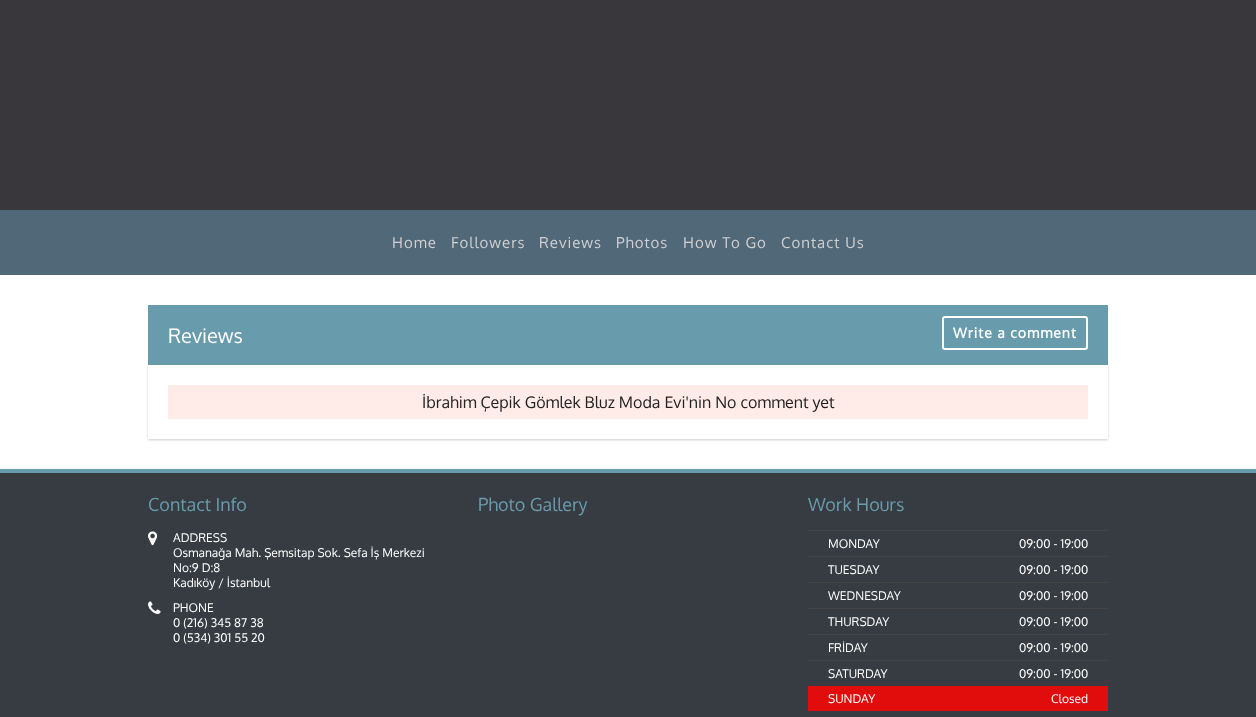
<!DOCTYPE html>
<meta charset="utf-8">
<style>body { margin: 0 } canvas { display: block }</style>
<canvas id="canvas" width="1256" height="717"></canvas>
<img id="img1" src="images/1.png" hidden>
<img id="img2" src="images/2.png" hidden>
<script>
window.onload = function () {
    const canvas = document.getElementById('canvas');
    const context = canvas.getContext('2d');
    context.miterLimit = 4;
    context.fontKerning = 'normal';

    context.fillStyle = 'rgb(57, 55, 60)';
    context.fillRect(0, 0, 1256, 717);
    context.fillStyle = 'rgb(80, 104, 119)';
    context.fillRect(0, 210, 1256, 65);
    context.fillStyle = 'rgb(255, 255, 255)';
    context.fillRect(0, 275, 1256, 194);
    context.fillStyle = 'rgb(104, 155, 172)';
    context.fillRect(148, 305, 960, 60);
    context.beginPath();
    context.roundRect(943, 317, 144, 32, 2);
    context.strokeStyle = 'rgb(255, 255, 255)';
    context.lineWidth = 2;
    context.stroke();
    context.save();
    context.beginPath();
    context.moveTo(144, 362);
    context.lineTo(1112, 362);
    context.lineTo(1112, 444);
    context.lineTo(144, 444);
    context.closePath();
    context.moveTo(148, 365);
    context.lineTo(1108, 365);
    context.lineTo(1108, 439);
    context.lineTo(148, 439);
    context.closePath();
    context.clip('evenodd');
    context.fillStyle = 'rgba(0, 0, 0, 0.2)';
    context.filter = 'blur(1px)';
    context.beginPath();
    context.rect(148, 366, 960, 74);
    context.fill();
    context.filter = 'none';
    context.restore();
    context.fillStyle = 'rgb(255, 235, 232)';
    context.fillRect(168, 385, 920, 34);
    context.fillStyle = 'rgb(55, 60, 66)';
    context.fillRect(0, 473, 1256, 244);
    context.fillStyle = 'rgb(104, 155, 172)';
    context.fillRect(0, 469, 1256, 4);
    context.drawImage(document.getElementById('img1'), 148, 531, 10, 15);
    context.drawImage(document.getElementById('img2'), 148, 601, 13, 13);
    context.fillStyle = 'rgb(68, 68, 68)';
    context.fillRect(808, 530, 300, 1);
    context.fillRect(808, 556, 300, 1);
    context.fillRect(808, 582, 300, 1);
    context.fillRect(808, 608, 300, 1);
    context.fillRect(808, 634, 300, 1);
    context.fillRect(808, 660, 300, 1);
    context.fillStyle = 'rgb(225, 13, 13)';
    context.fillRect(808, 686, 300, 25);
    context.letterSpacing = '1px';
    context.font = '15px Oxygen';
    context.fillStyle = 'rgb(210, 208, 211)';
    context.fillText('Home', 392, 248);
    context.fillText('Followers', 451, 248);
    context.fillText('Reviews', 539, 248);
    context.fillText('Photos', 616, 248);
    context.fillText('How To Go', 683, 248);
    context.fillText('Contact Us', 781, 248);
    context.letterSpacing = '0px';
    context.font = '20px Oxygen';
    context.fillStyle = 'rgb(255, 255, 255)';
    context.fillText('Reviews', 168, 343);
    context.letterSpacing = '1px';
    context.font = 'bold 14px Oxygen';
    context.fillText('Write a comment', 953, 338);
    context.letterSpacing = '0px';
    context.font = '16px Oxygen';
    context.fillStyle = 'rgb(34, 34, 34)';
    context.fillText('İbrahim Çepik Gömlek Bluz Moda Evi\'nin No comment yet', 422, 408);
    context.font = '18px Oxygen';
    context.fillStyle = 'rgb(104, 155, 172)';
    context.fillText('Contact Info', 148, 511);
    context.font = '12px Oxygen';
    context.fillStyle = 'rgb(255, 255, 255)';
    context.fillText('ADDRESS', 173, 542);
    context.fillText('Osmanağa Mah. Şemsitap Sok. Sefa İş Merkezi', 173, 557);
    context.fillText('No:9 D:8', 173, 572);
    context.fillText('Kadıköy / İstanbul', 173, 587);
    context.fillText('PHONE', 173, 612);
    context.fillText('0 (216) 345 87 38', 173, 627);
    context.fillText('0 (534) 301 55 20', 173, 642);
    context.font = '18px Oxygen';
    context.fillStyle = 'rgb(104, 155, 172)';
    context.fillText('Photo Gallery', 478, 511);
    context.fillText('Work Hours', 808, 511);
    context.font = '12px Oxygen';
    context.fillStyle = 'rgb(255, 255, 255)';
    context.fillText('MONDAY', 828, 548);
    context.fillText('09:00 - 19:00', 1019, 548);
    context.fillText('TUESDAY', 828, 574);
    context.fillText('09:00 - 19:00', 1019, 574);
    context.fillText('WEDNESDAY', 828, 600);
    context.fillText('09:00 - 19:00', 1019, 600);
    context.fillText('THURSDAY', 828, 626);
    context.fillText('09:00 - 19:00', 1019, 626);
    context.fillText('FRİDAY', 828, 652);
    context.fillText('09:00 - 19:00', 1019, 652);
    context.fillText('SATURDAY', 828, 678);
    context.fillText('09:00 - 19:00', 1019, 678);
    context.fillText('SUNDAY', 828, 703);
    context.fillText('Closed', 1051, 703);
};
</script>
